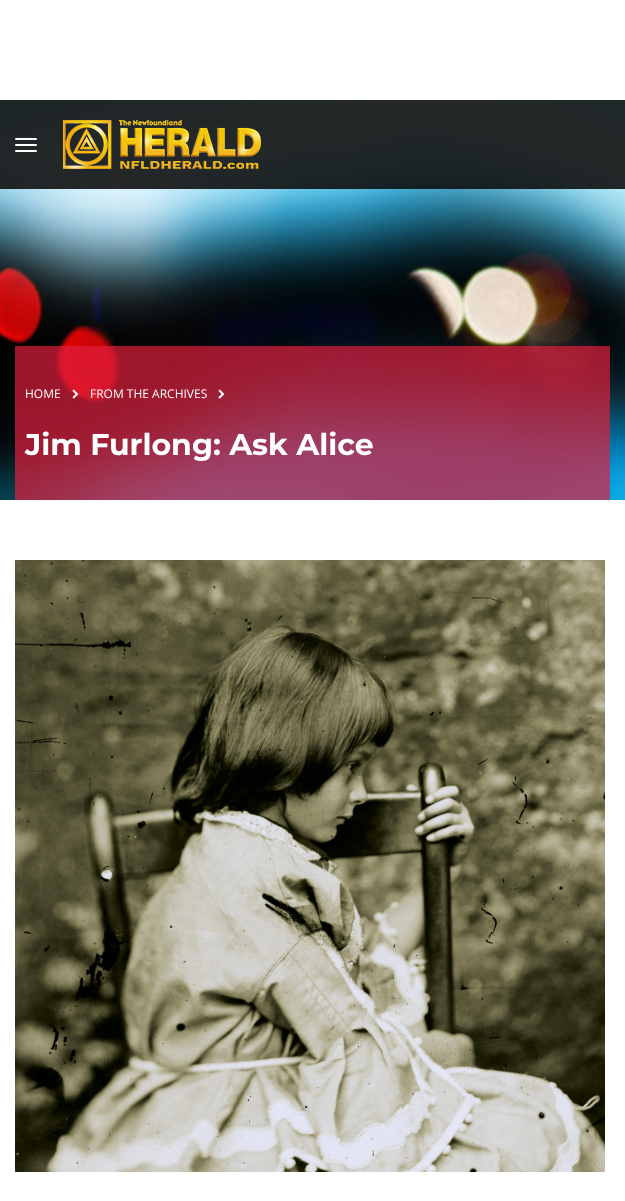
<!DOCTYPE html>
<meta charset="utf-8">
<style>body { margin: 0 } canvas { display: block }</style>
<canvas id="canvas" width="625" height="1201"></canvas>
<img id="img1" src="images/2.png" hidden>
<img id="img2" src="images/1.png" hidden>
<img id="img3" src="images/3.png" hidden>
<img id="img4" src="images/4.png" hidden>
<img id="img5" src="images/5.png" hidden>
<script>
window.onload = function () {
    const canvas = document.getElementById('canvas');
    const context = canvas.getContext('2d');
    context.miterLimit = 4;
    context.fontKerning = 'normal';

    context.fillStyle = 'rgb(255, 255, 255)';
    context.fillRect(0, 0, 625, 1201);
    context.drawImage(document.getElementById('img1'), 0, 100, 625, 400);
    context.fillStyle = 'rgba(17, 17, 17, 0.9)';
    context.fillRect(0, 100, 625, 89);
    context.fillStyle = 'rgb(255, 255, 255)';
    context.beginPath();
    context.roundRect(15, 138, 22, 2, 1);
    context.fill();
    context.beginPath();
    context.roundRect(15, 144, 22, 2, 1);
    context.fill();
    context.beginPath();
    context.roundRect(15, 150, 22, 2, 1);
    context.fill();
    context.drawImage(document.getElementById('img2'), 63, 120, 198, 49);
    context.fillStyle = 'rgba(223, 31, 61, 0.7)';
    context.fillRect(15, 346, 595, 154);
    context.drawImage(document.getElementById('img3'), 72, 389, 7, 10);
    context.drawImage(document.getElementById('img4'), 218, 389, 7, 10);
    context.drawImage(document.getElementById('img5'), 15, 560, 590, 612);
    context.font = '12px Open Sans';
    context.fillStyle = 'rgb(255, 255, 255)';
    context.fillText('HOME', 25, 398);
    context.fillText('FROM THE ARCHIVES', 90, 398);
    context.font = 'bold 30px Montserrat';
    context.fillText('Jim Furlong: Ask Alice', 25, 455);
};
</script>
